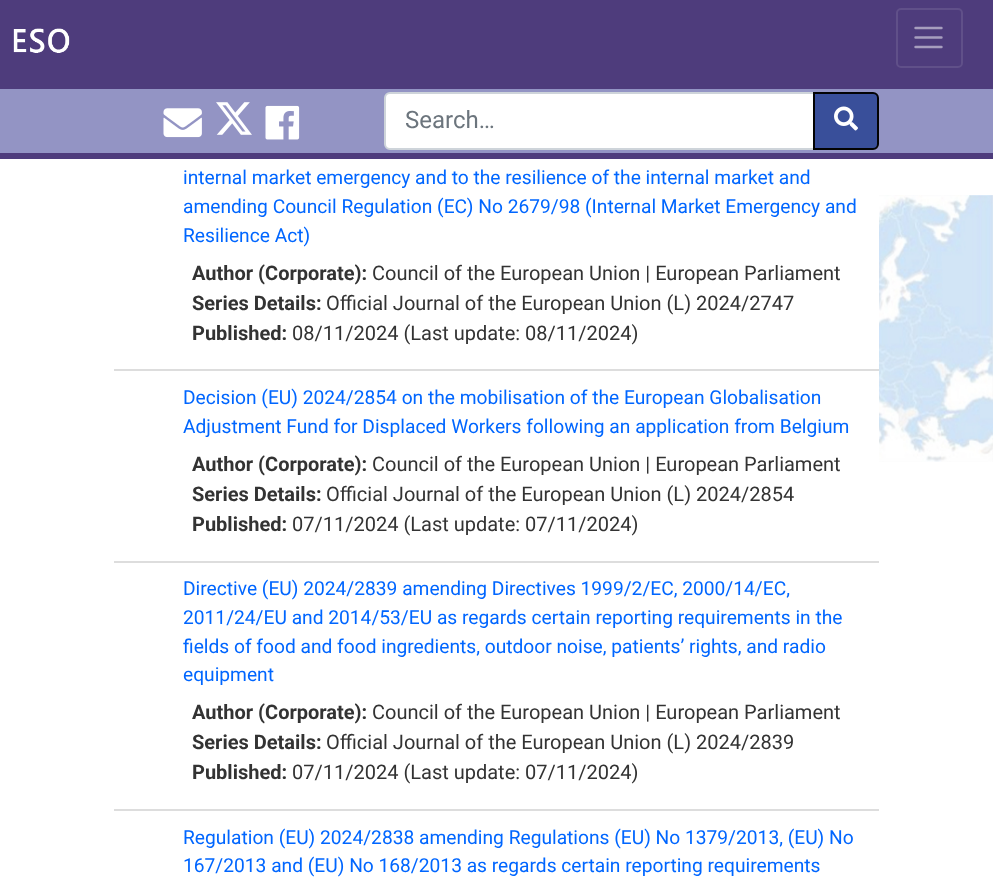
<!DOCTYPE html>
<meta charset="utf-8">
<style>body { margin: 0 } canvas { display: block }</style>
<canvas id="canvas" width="993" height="880"></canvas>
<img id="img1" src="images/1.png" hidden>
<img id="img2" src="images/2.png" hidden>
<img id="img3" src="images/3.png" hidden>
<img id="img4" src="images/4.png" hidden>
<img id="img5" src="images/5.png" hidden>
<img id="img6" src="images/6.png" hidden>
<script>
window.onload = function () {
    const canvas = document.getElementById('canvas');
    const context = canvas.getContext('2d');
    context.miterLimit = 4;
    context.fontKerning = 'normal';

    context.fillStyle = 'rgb(255, 255, 255)';
    context.fillRect(0, 0, 993, 880);
    context.drawImage(document.getElementById('img1'), 879, 195, 114, 267);
    context.fillStyle = 'rgb(78, 60, 124)';
    context.fillRect(0, 0, 993, 89);
    context.drawImage(document.getElementById('img2'), 13, 28, 57, 25);
    context.beginPath();
    context.roundRect(897, 9, 65, 58, 4);
    context.strokeStyle = 'rgb(96, 80, 137)';
    context.lineWidth = 2;
    context.stroke();
    context.beginPath();
    context.moveTo(915.5, 28);
    context.lineTo(941.5, 28);
    context.moveTo(915.5, 37.5);
    context.lineTo(941.5, 37.5);
    context.moveTo(915.5, 47);
    context.lineTo(941.5, 47);
    context.strokeStyle = 'rgb(167, 158, 190)';
    context.lineWidth = 2.4;
    context.lineCap = 'round';
    context.stroke();
    context.fillStyle = 'rgb(147, 148, 196)';
    context.fillRect(0, 89, 993, 64);
    context.fillStyle = 'rgb(78, 60, 124)';
    context.fillRect(0, 153, 993, 6);
    context.drawImage(document.getElementById('img3'), 163, 108, 39, 30);
    context.drawImage(document.getElementById('img4'), 216, 102, 36, 33);
    context.drawImage(document.getElementById('img5'), 265, 105, 35, 35);
    context.fillStyle = 'rgb(255, 255, 255)';
    context.beginPath();
    context.roundRect(385, 93, 429, 56, [5, 0, 0, 5]);
    context.fill();
    context.strokeStyle = 'rgb(206, 212, 218)';
    context.lineWidth = 2;
    context.stroke();
    context.fillStyle = 'rgb(57, 79, 154)';
    context.beginPath();
    context.roundRect(814, 93, 64, 56, [0, 5, 5, 0]);
    context.fill();
    context.strokeStyle = 'rgb(3, 3, 3)';
    context.stroke();
    context.drawImage(document.getElementById('img6'), 834, 106, 24, 25);
    context.fillStyle = 'rgb(221, 221, 221)';
    context.fillRect(114, 369, 765, 2);
    context.fillRect(114, 561, 765, 2);
    context.fillRect(114, 809, 765, 2);
    context.font = '24px Roboto';
    context.fillStyle = 'rgb(108, 117, 125)';
    context.fillText('Search…', 405, 128);
    context.font = '19.2px Roboto';
    context.fillStyle = 'rgb(0, 102, 255)';
    context.fillText('internal market emergency and to the resilience of the internal market and', 183, 184);
    context.fillText('amending Council Regulation (EC) No 2679/98 (Internal Market Emergency and', 183, 213);
    context.fillText('Resilience Act)', 183, 242);
    context.font = 'bold 20px Roboto';
    context.fillStyle = 'rgb(51, 51, 51)';
    context.fillText('Author (Corporate):', 192, 280);
    context.font = '20px Roboto';
    context.fillText('Council of the European Union | European Parliament', 372, 280);
    context.font = 'bold 20px Roboto';
    context.fillText('Series Details:', 192, 310);
    context.font = '20px Roboto';
    context.fillText('Official Journal of the European Union (L) 2024/2747', 326, 310);
    context.font = 'bold 20px Roboto';
    context.fillText('Published:', 192, 340);
    context.font = '20px Roboto';
    context.fillText('08/11/2024 (Last update: 08/11/2024)', 292, 340);
    context.font = '19.2px Roboto';
    context.fillStyle = 'rgb(0, 102, 255)';
    context.fillText('Decision (EU) 2024/2854 on the mobilisation of the European Globalisation', 183, 404);
    context.fillText('Adjustment Fund for Displaced Workers following an application from Belgium', 183, 433);
    context.font = 'bold 20px Roboto';
    context.fillStyle = 'rgb(51, 51, 51)';
    context.fillText('Author (Corporate):', 192, 471);
    context.font = '20px Roboto';
    context.fillText('Council of the European Union | European Parliament', 372, 471);
    context.font = 'bold 20px Roboto';
    context.fillText('Series Details:', 192, 501);
    context.font = '20px Roboto';
    context.fillText('Official Journal of the European Union (L) 2024/2854', 326, 501);
    context.font = 'bold 20px Roboto';
    context.fillText('Published:', 192, 531);
    context.font = '20px Roboto';
    context.fillText('07/11/2024 (Last update: 07/11/2024)', 292, 531);
    context.font = '19.2px Roboto';
    context.fillStyle = 'rgb(0, 102, 255)';
    context.fillText('Directive (EU) 2024/2839 amending Directives 1999/2/EC, 2000/14/EC,', 183, 595);
    context.fillText('2011/24/EU and 2014/53/EU as regards certain reporting requirements in the', 183, 624);
    context.fillText('fields of food and food ingredients, outdoor noise, patients’ rights, and radio', 183, 653);
    context.fillText('equipment', 183, 681);
    context.font = 'bold 20px Roboto';
    context.fillStyle = 'rgb(51, 51, 51)';
    context.fillText('Author (Corporate):', 192, 719);
    context.font = '20px Roboto';
    context.fillText('Council of the European Union | European Parliament', 372, 719);
    context.font = 'bold 20px Roboto';
    context.fillText('Series Details:', 192, 749);
    context.font = '20px Roboto';
    context.fillText('Official Journal of the European Union (L) 2024/2839', 326, 749);
    context.font = 'bold 20px Roboto';
    context.fillText('Published:', 192, 779);
    context.font = '20px Roboto';
    context.fillText('07/11/2024 (Last update: 07/11/2024)', 292, 779);
    context.font = '19.2px Roboto';
    context.fillStyle = 'rgb(0, 102, 255)';
    context.fillText('Regulation (EU) 2024/2838 amending Regulations (EU) No 1379/2013, (EU) No', 183, 844);
    context.fillText('167/2013 and (EU) No 168/2013 as regards certain reporting requirements', 183, 872);
};
</script>
